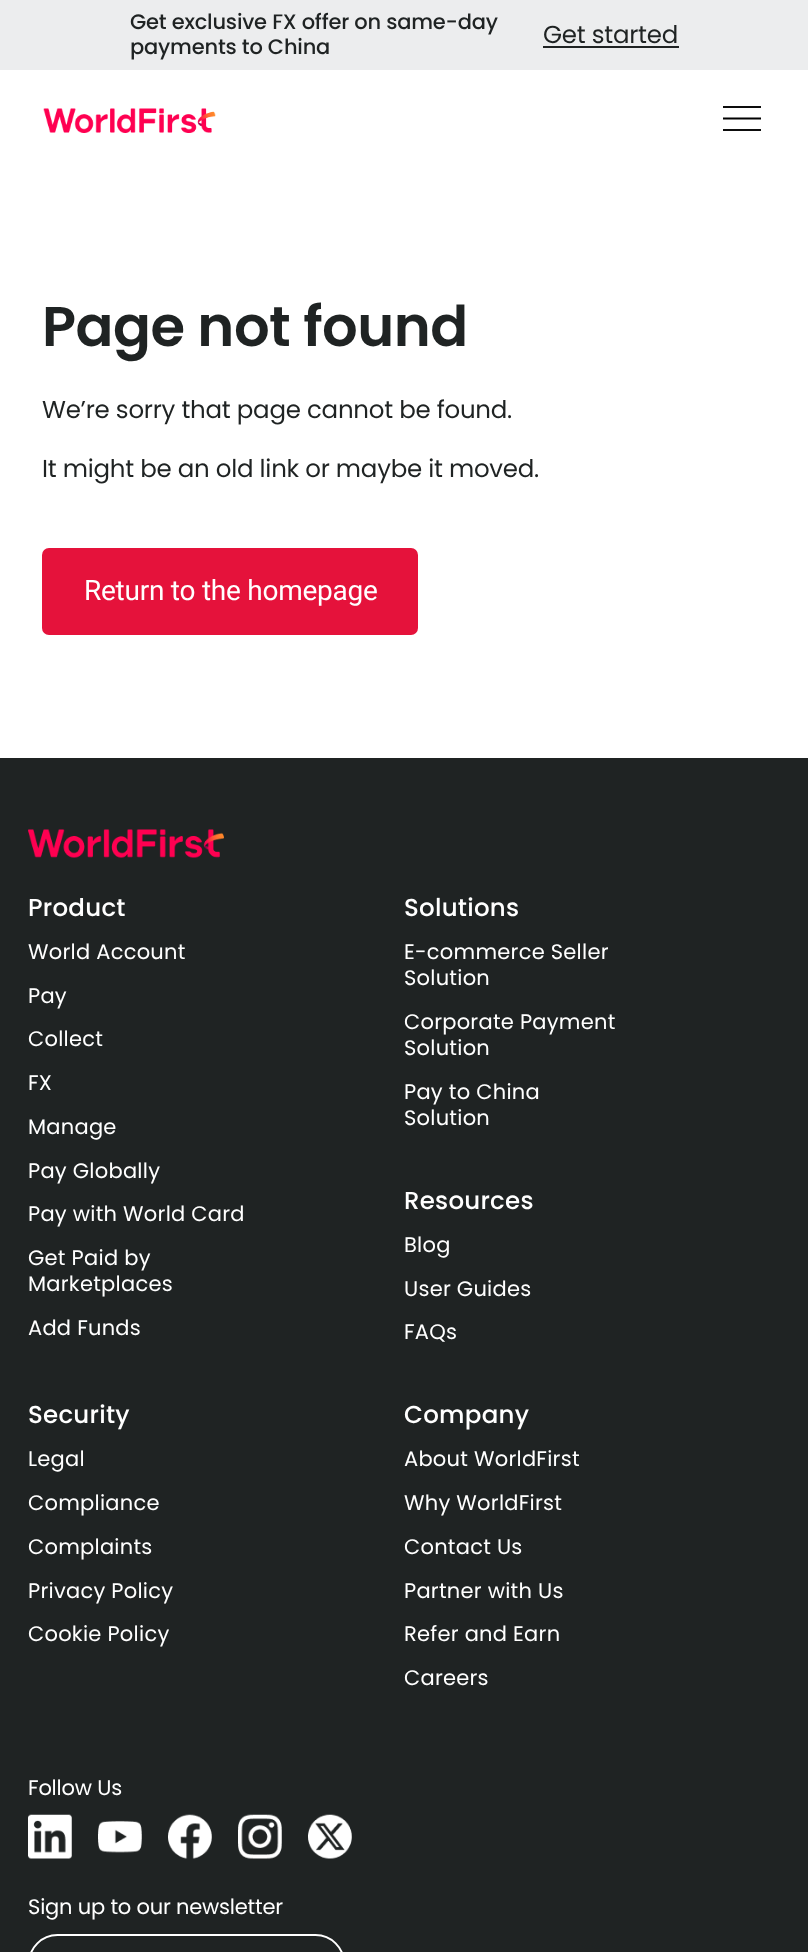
<!DOCTYPE html>
<meta charset="utf-8">
<style>body { margin: 0 } canvas { display: block }</style>
<canvas id="canvas" width="808" height="1952"></canvas>
<img id="img1" src="images/1.png" hidden>
<img id="img2" src="images/2.png" hidden>
<img id="img3" src="images/3.png" hidden>
<img id="img4" src="images/4.png" hidden>
<img id="img5" src="images/5.png" hidden>
<img id="img6" src="images/6.png" hidden>
<img id="img7" src="images/7.png" hidden>
<script>
window.onload = function () {
    const canvas = document.getElementById('canvas');
    const context = canvas.getContext('2d');
    context.miterLimit = 4;
    context.fontKerning = 'normal';

    context.fillStyle = 'rgb(255, 255, 255)';
    context.fillRect(0, 0, 808, 1952);
    context.fillStyle = 'rgb(236, 237, 238)';
    context.fillRect(0, 0, 808, 70);
    context.fillStyle = 'rgb(31, 35, 35)';
    context.fillRect(543, 46, 136, 2);
    context.drawImage(document.getElementById('img1'), 43, 108, 173, 25);
    context.fillStyle = 'rgb(13, 13, 13)';
    context.fillRect(723, 106, 38, 2);
    context.beginPath();
    context.moveTo(723, 118.5);
    context.lineTo(761, 118.5);
    context.strokeStyle = 'rgb(0, 0, 0)';
    context.lineWidth = 1.9;
    context.stroke();
    context.fillRect(723, 129, 38, 2);
    context.fillStyle = 'rgb(229, 18, 59)';
    context.beginPath();
    context.roundRect(42, 548, 376, 87, 7);
    context.fill();
    context.fillStyle = 'rgb(31, 35, 35)';
    context.fillRect(0, 758, 808, 1194);
    context.drawImage(document.getElementById('img2'), 28, 829, 196, 29);
    context.drawImage(document.getElementById('img3'), 28, 1814, 44, 45);
    context.drawImage(document.getElementById('img4'), 98, 1820, 44, 33);
    context.drawImage(document.getElementById('img5'), 168, 1814, 44, 45);
    context.drawImage(document.getElementById('img6'), 238, 1814, 44, 45);
    context.drawImage(document.getElementById('img7'), 308, 1814, 44, 45);
    context.beginPath();
    context.roundRect(29, 1935, 315, 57, 37.5);
    context.strokeStyle = 'rgb(255, 255, 255)';
    context.lineWidth = 2;
    context.stroke();
    context.letterSpacing = '-0.2px';
    context.font = '500 21px Poppins';
    context.fillText('Get exclusive FX offer on same-day', 130, 29);
    context.fillText('payments to China', 130, 54);
    context.letterSpacing = '-0.25px';
    context.font = '24.5px Poppins';
    context.fillText('Get started', 543, 43);
    context.letterSpacing = '-0.5px';
    context.font = '600 56px Poppins';
    context.fillText('Page not found', 42, 346);
    context.letterSpacing = '-0.25px';
    context.font = '24.5px Poppins';
    context.fillText('We’re sorry that page cannot be found.', 42, 418);
    context.fillText('It might be an old link or maybe it moved.', 42, 477);
    context.font = '28px Roboto';
    context.fillStyle = 'rgb(255, 255, 255)';
    context.fillText('Return to the homepage', 84, 600);
    context.letterSpacing = '0.25px';
    context.font = '500 24.5px Poppins';
    context.fillText('Product', 28, 916);
    context.font = '21px Poppins';
    context.fillText('World Account', 28, 959);
    context.fillText('Pay', 28, 1003);
    context.fillText('Collect', 28, 1046);
    context.fillText('FX', 28, 1090);
    context.fillText('Manage', 28, 1134);
    context.fillText('Pay Globally', 28, 1178);
    context.fillText('Pay with World Card', 28, 1221);
    context.fillText('Get Paid by', 28, 1265);
    context.fillText('Marketplaces', 28, 1291);
    context.fillText('Add Funds', 28, 1335);
    context.font = '500 24.5px Poppins';
    context.fillText('Solutions', 404, 916);
    context.font = '21px Poppins';
    context.fillText('E-commerce Seller', 404, 959);
    context.fillText('Solution', 404, 985);
    context.fillText('Corporate Payment', 404, 1029);
    context.fillText('Solution', 404, 1055);
    context.fillText('Pay to China', 404, 1099);
    context.fillText('Solution', 404, 1125);
    context.font = '500 24.5px Poppins';
    context.fillText('Resources', 404, 1209);
    context.font = '21px Poppins';
    context.fillText('Blog', 404, 1252);
    context.fillText('User Guides', 404, 1296);
    context.fillText('FAQs', 404, 1339);
    context.font = '500 24.5px Poppins';
    context.fillText('Security', 28, 1423);
    context.font = '21px Poppins';
    context.fillText('Legal', 28, 1466);
    context.fillText('Compliance', 28, 1510);
    context.fillText('Complaints', 28, 1554);
    context.fillText('Privacy Policy', 28, 1598);
    context.fillText('Cookie Policy', 28, 1641);
    context.font = '500 24.5px Poppins';
    context.fillText('Company', 404, 1423);
    context.font = '21px Poppins';
    context.fillText('About WorldFirst', 404, 1466);
    context.fillText('Why WorldFirst', 404, 1510);
    context.fillText('Contact Us', 404, 1554);
    context.fillText('Partner with Us', 404, 1598);
    context.fillText('Refer and Earn', 404, 1641);
    context.fillText('Careers', 404, 1685);
    context.letterSpacing = '-0.2px';
    context.fillText('Follow Us', 28, 1795);
    context.fillText('Sign up to our newsletter', 28, 1914);
};
</script>
